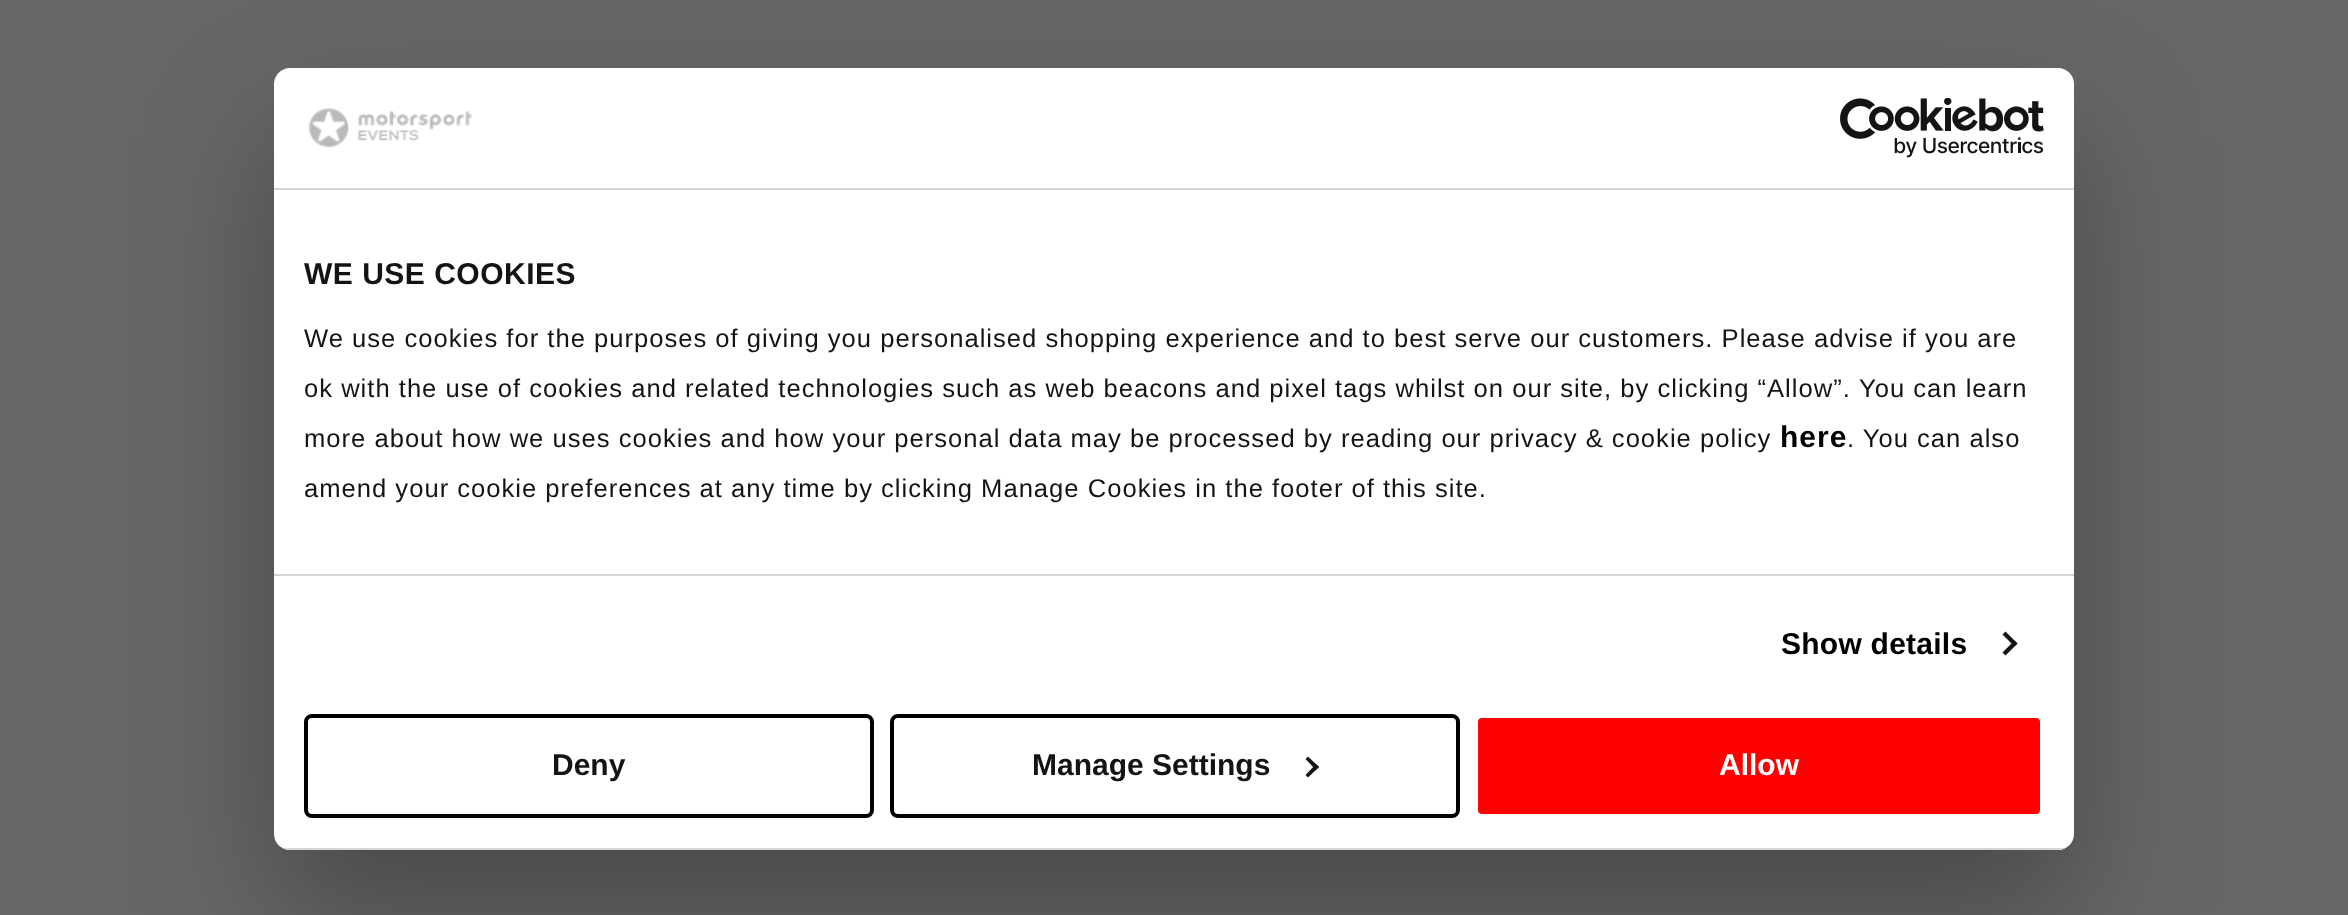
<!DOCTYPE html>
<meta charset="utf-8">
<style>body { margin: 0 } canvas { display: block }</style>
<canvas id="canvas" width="2348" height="915"></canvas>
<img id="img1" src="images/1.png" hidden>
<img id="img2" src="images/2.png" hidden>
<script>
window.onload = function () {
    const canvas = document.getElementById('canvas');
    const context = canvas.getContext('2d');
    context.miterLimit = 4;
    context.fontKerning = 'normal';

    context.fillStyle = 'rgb(103, 103, 103)';
    context.fillRect(0, 0, 2348, 915);
    context.fillStyle = 'rgba(0, 0, 0, 0.3)';
    context.filter = 'blur(68px)';
    context.beginPath();
    context.roundRect(274, 132, 1800, 782, 16);
    context.fill();
    context.filter = 'none';
    context.fillStyle = 'rgb(255, 255, 255)';
    context.beginPath();
    context.roundRect(274, 68, 1800, 782, 16);
    context.fill();
    context.fillStyle = 'rgb(214, 214, 214)';
    context.fillRect(274, 188, 1800, 2);
    context.drawImage(document.getElementById('img1'), 308, 108, 164, 40);
    context.drawImage(document.getElementById('img2'), 1840, 98, 204, 60);
    context.fillRect(274, 574, 1800, 2);
    context.fillStyle = 'rgb(20, 20, 20)';
    context.beginPath();
    context.moveTo(2005.5, 631.5);
    context.lineTo(2017.5, 643.5);
    context.lineTo(2014.5, 646.5);
    context.lineTo(2002.5, 634.5);
    context.closePath();
    context.fill();
    context.beginPath();
    context.moveTo(2014.5, 640.5);
    context.lineTo(2017.5, 643.5);
    context.lineTo(2005.5, 655.5);
    context.lineTo(2002.5, 652.5);
    context.closePath();
    context.fill();
    context.save();
    context.beginPath();
    context.roundRect(274, 68, 1800, 782, 16);
    context.clip();
    context.fillStyle = 'rgb(214, 214, 214)';
    context.fillRect(274, 848, 1800, 2);
    context.restore();
    context.beginPath();
    context.roundRect(306, 716, 566, 100, 6);
    context.strokeStyle = 'rgb(0, 0, 0)';
    context.lineWidth = 4;
    context.stroke();
    context.beginPath();
    context.roundRect(892, 716, 566, 100, 6);
    context.stroke();
    context.beginPath();
    context.moveTo(1308, 756.5);
    context.lineTo(1319, 767);
    context.lineTo(1316, 770);
    context.lineTo(1305.5, 759);
    context.closePath();
    context.fill();
    context.beginPath();
    context.moveTo(1316, 764);
    context.lineTo(1319, 767);
    context.lineTo(1308, 777.5);
    context.lineTo(1305.5, 775);
    context.closePath();
    context.fill();
    context.fillStyle = 'rgb(255, 0, 0)';
    context.beginPath();
    context.roundRect(1476, 716, 566, 100, 6);
    context.fill();
    context.strokeStyle = 'rgb(255, 255, 255)';
    context.stroke();
    context.letterSpacing = '0.5px';
    context.font = 'bold 30px Liberation Sans';
    context.fillStyle = 'rgb(20, 20, 20)';
    context.fillText('WE USE COOKIES', 304, 284);
    context.letterSpacing = '1px';
    context.font = '25.6px Liberation Sans';
    context.fillText('We use cookies for the purposes of giving you personalised shopping experience and to best serve our customers. Please advise if you are', 304, 347);
    context.fillText('ok with the use of cookies and related technologies such as web beacons and pixel tags whilst on our site, by clicking “Allow”.', 304, 397);
    context.fillText('You can learn', 1859, 397);
    context.fillText('more about how we uses cookies and how your personal data may be processed by reading our privacy & cookie policy', 304, 447);
    context.font = 'bold 30px Liberation Sans';
    context.fillStyle = 'rgb(0, 0, 0)';
    context.fillText('here', 1780, 447);
    context.font = '25.6px Liberation Sans';
    context.fillStyle = 'rgb(20, 20, 20)';
    context.fillText('. You can also', 1847, 447);
    context.fillText('amend your cookie preferences at any time by clicking Manage Cookies in the footer of this site.', 304, 497);
    context.letterSpacing = '0.25px';
    context.font = 'bold 30px Liberation Sans';
    context.fillStyle = 'rgb(0, 0, 0)';
    context.fillText('Show details', 1781, 654);
    context.letterSpacing = '0px';
    context.fillStyle = 'rgb(20, 20, 20)';
    context.fillText('Deny', 552, 775);
    context.fillText('Manage Settings', 1032, 775);
    context.fillStyle = 'rgb(255, 255, 255)';
    context.fillText('Allow', 1719, 775);
};
</script>
